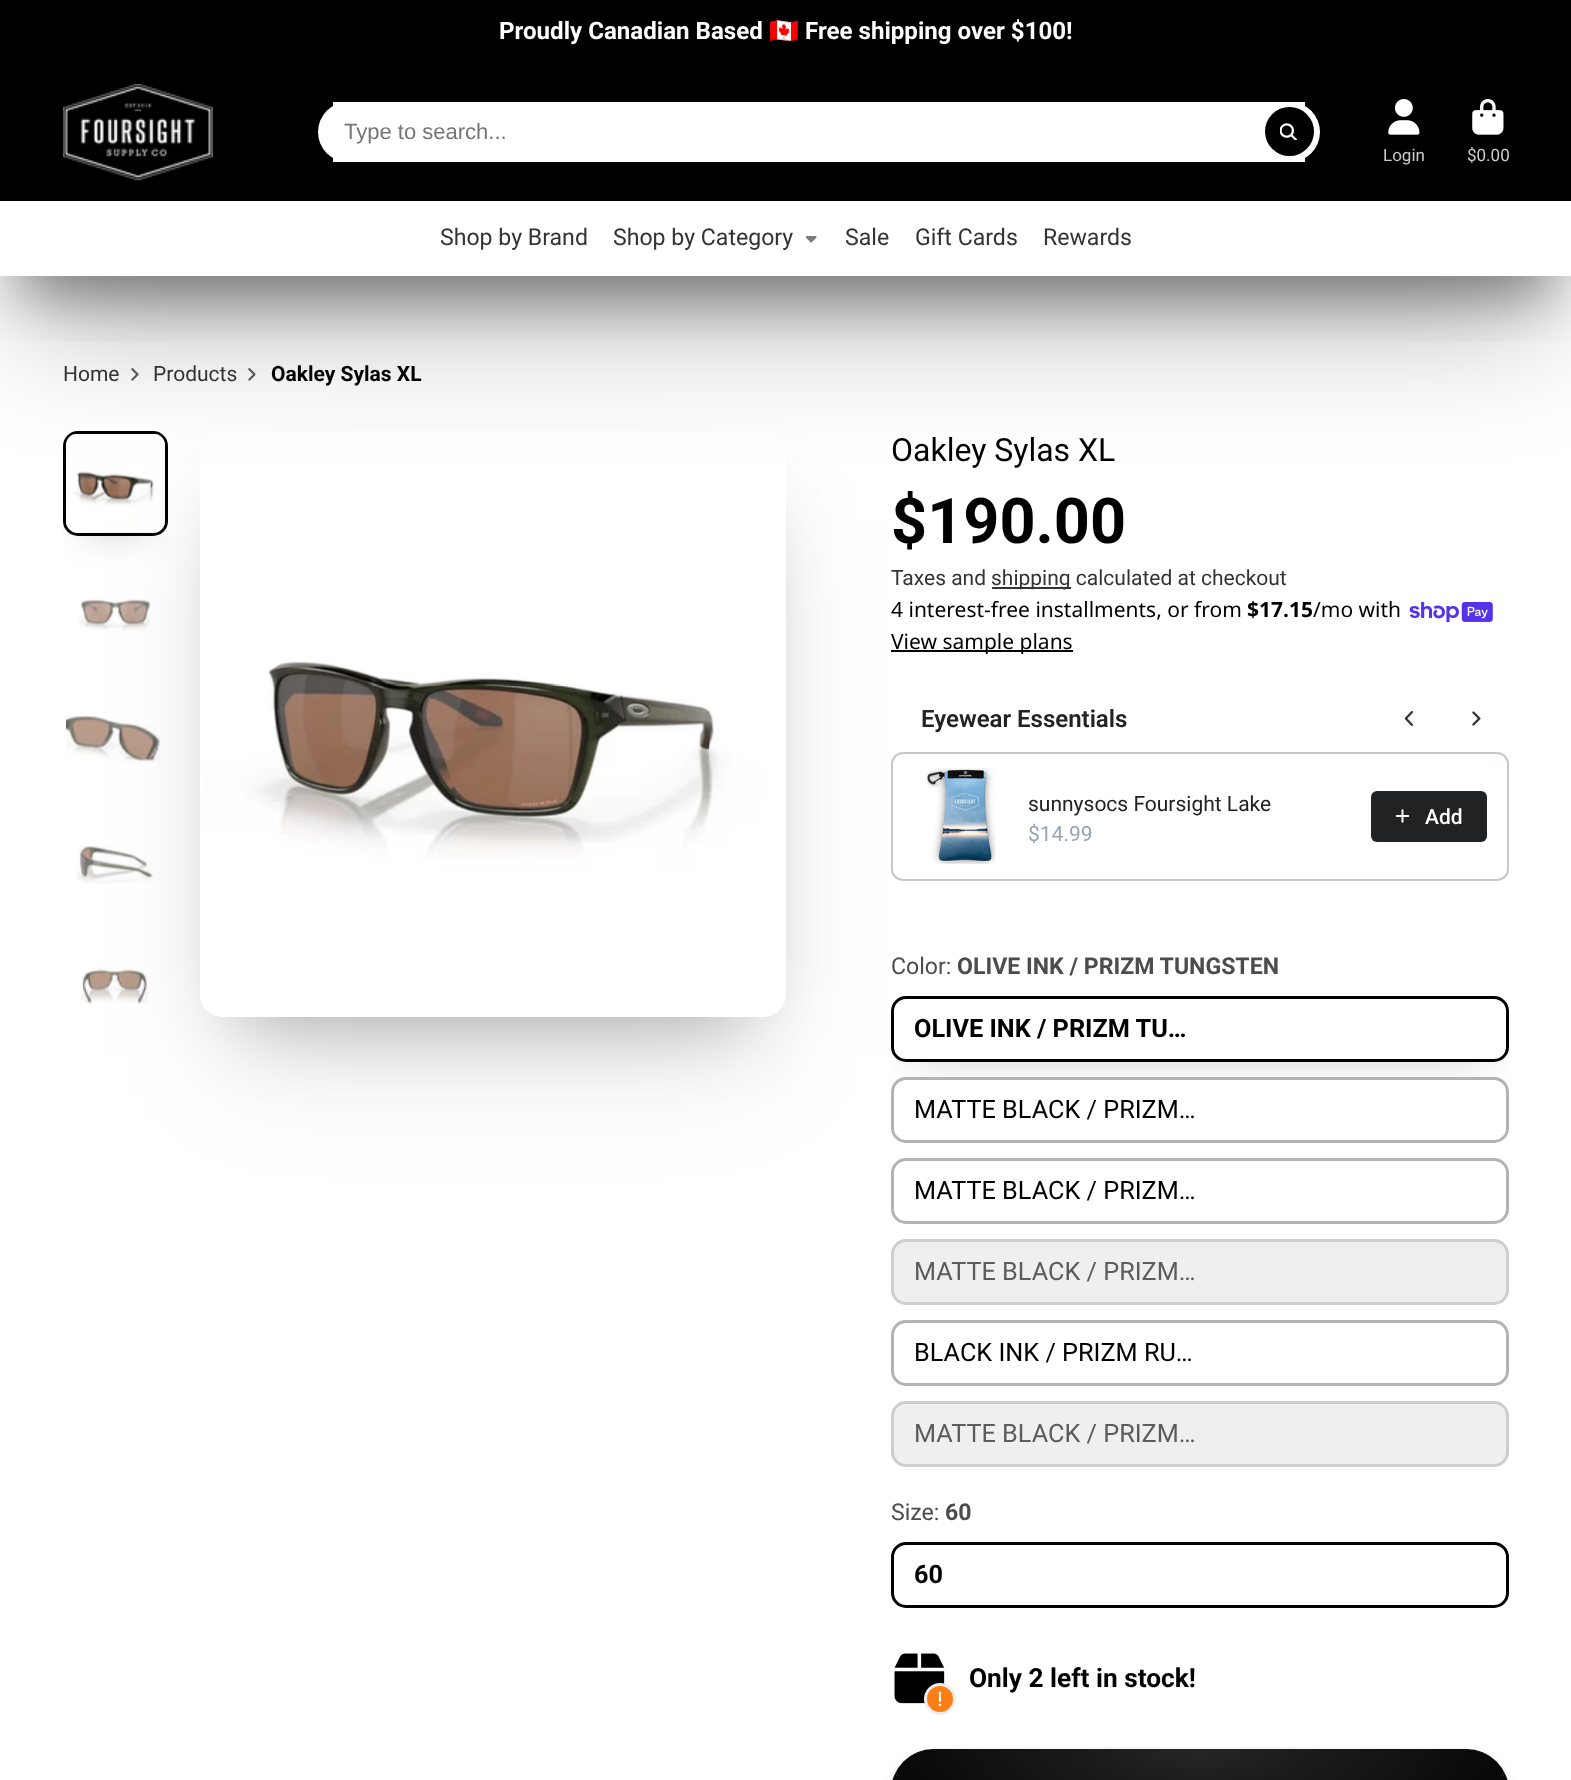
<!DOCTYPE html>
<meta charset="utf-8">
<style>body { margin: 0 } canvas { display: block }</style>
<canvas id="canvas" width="1571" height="1780"></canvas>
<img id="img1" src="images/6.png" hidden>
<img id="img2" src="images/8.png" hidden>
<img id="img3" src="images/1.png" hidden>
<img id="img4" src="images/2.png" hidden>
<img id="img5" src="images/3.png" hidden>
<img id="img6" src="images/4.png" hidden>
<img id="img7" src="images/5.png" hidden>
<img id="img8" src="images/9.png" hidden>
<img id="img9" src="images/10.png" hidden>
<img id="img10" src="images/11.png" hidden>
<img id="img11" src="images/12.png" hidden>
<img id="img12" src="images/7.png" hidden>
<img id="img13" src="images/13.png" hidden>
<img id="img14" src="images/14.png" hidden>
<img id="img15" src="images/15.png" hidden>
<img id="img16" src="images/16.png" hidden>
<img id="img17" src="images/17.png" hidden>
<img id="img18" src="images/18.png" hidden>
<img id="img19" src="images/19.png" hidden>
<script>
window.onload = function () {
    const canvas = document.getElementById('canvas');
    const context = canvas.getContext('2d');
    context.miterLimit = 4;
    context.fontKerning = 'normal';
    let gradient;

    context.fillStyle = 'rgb(255, 255, 255)';
    context.fillRect(0, 0, 1571, 1780);
    context.fillStyle = 'rgb(0, 0, 0)';
    context.fillRect(0, 0, 1571, 63);
    context.drawImage(document.getElementById('img1'), 131, 368, 8, 13);
    context.drawImage(document.getElementById('img1'), 248, 368, 8, 13);
    context.save();
    context.beginPath();
    context.rect(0, 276, 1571, 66);
    context.clip();
    context.fillStyle = 'rgba(0, 0, 0, 0.4)';
    context.filter = 'blur(29px)';
    context.beginPath();
    context.rect(21, 123, 1530, 171);
    context.fill();
    context.filter = 'none';
    context.restore();
    context.save();
    context.beginPath();
    context.rect(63, 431, 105, 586);
    context.clip();
    context.fillStyle = 'rgba(0, 0, 0, 0.3)';
    context.filter = 'blur(21px)';
    context.beginPath();
    context.rect(84, 462, 63, 63);
    context.fill();
    context.filter = 'none';
    context.restore();
    context.beginPath();
    context.roundRect(64.5, 432.5, 102, 102, 13.5);
    context.strokeStyle = 'rgb(0, 0, 0)';
    context.lineWidth = 3;
    context.stroke();
    context.drawImage(document.getElementById('img2'), 66, 434, 99, 99);
    context.save();
    context.beginPath();
    context.moveTo(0, 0);
    context.lineTo(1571, 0);
    context.lineTo(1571, 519);
    context.lineTo(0, 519);
    context.closePath();
    context.moveTo(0, 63);
    context.lineTo(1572, 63);
    context.lineTo(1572, 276);
    context.lineTo(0, 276);
    context.closePath();
    context.clip('evenodd');
    context.fillStyle = 'rgba(0, 0, 0, 0.3)';
    context.filter = 'blur(65.5px)';
    context.beginPath();
    context.rect(21, 150, 1530, 171);
    context.fill();
    context.filter = 'none';
    context.restore();
    context.fillRect(0, 63, 1571, 138);
    context.drawImage(document.getElementById('img3'), 63, 84, 150, 97);
    context.fillStyle = 'rgb(255, 255, 255)';
    context.fillRect(333, 102, 972, 60);
    context.beginPath();
    context.roundRect(318, 102, 1002, 60, 30);
    context.fill();
    context.fillStyle = 'rgb(0, 0, 0)';
    context.beginPath();
    context.arc(1289.5, 131.5, 24.5, 0, 2 * Math.PI);
    context.fill();
    context.drawImage(document.getElementById('img4'), 1280, 123, 17, 17);
    context.drawImage(document.getElementById('img5'), 1388, 99, 32, 36);
    context.drawImage(document.getElementById('img6'), 1472, 99, 32, 36);
    context.drawImage(document.getElementById('img7'), 805, 236, 12, 7);
    context.drawImage(document.getElementById('img8'), 78, 599, 73, 32);
    context.drawImage(document.getElementById('img9'), 66, 715, 94, 49);
    context.drawImage(document.getElementById('img10'), 76, 846, 78, 38);
    context.drawImage(document.getElementById('img11'), 80, 966, 70, 39);
    context.save();
    context.beginPath();
    context.moveTo(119, 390);
    context.lineTo(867, 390);
    context.lineTo(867, 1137);
    context.lineTo(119, 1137);
    context.closePath();
    context.moveTo(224, 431);
    context.lineTo(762, 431);
    context.bezierCurveTo(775.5, 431, 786, 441.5, 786, 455);
    context.lineTo(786, 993);
    context.bezierCurveTo(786, 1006.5, 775.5, 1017, 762, 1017);
    context.lineTo(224, 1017);
    context.bezierCurveTo(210.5, 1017, 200, 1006.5, 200, 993);
    context.lineTo(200, 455);
    context.bezierCurveTo(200, 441.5, 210.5, 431, 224, 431);
    context.closePath();
    context.clip('evenodd');
    context.fillStyle = 'rgba(0, 0, 0, 0.3)';
    context.filter = 'blur(39.5px)';
    context.beginPath();
    context.rect(239, 510, 508, 507);
    context.fill();
    context.filter = 'none';
    context.restore();
    context.save();
    context.beginPath();
    context.moveTo(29, 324);
    context.lineTo(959, 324);
    context.lineTo(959, 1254);
    context.lineTo(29, 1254);
    context.closePath();
    context.moveTo(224, 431);
    context.lineTo(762, 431);
    context.bezierCurveTo(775.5, 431, 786, 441.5, 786, 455);
    context.lineTo(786, 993);
    context.bezierCurveTo(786, 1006.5, 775.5, 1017, 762, 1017);
    context.lineTo(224, 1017);
    context.bezierCurveTo(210.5, 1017, 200, 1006.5, 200, 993);
    context.lineTo(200, 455);
    context.bezierCurveTo(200, 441.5, 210.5, 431, 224, 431);
    context.closePath();
    context.clip('evenodd');
    context.fillStyle = 'rgba(0, 0, 0, 0.1)';
    context.filter = 'blur(65.5px)';
    context.beginPath();
    context.rect(227, 522, 534, 534);
    context.fill();
    context.filter = 'none';
    context.restore();
    context.drawImage(document.getElementById('img12'), 203, 660, 579, 356);
    context.fillStyle = 'rgb(51, 51, 51)';
    context.fillRect(992, 587, 79, 2);
    context.drawImage(document.getElementById('img13'), 1409, 602, 84, 21);
    context.fillStyle = 'rgb(0, 0, 0)';
    context.fillRect(891, 650, 182, 2);
    context.drawImage(document.getElementById('img14'), 1404, 711, 9, 15);
    context.drawImage(document.getElementById('img15'), 1472, 711, 9, 15);
    context.beginPath();
    context.roundRect(892, 753, 616, 127, 11);
    context.strokeStyle = 'rgb(197, 200, 209)';
    context.lineWidth = 2;
    context.stroke();
    context.drawImage(document.getElementById('img16'), 927, 768, 69, 96);
    context.fillStyle = 'rgb(32, 34, 35)';
    context.beginPath();
    context.roundRect(1371, 791, 116, 51, 6);
    context.fill();
    context.drawImage(document.getElementById('img17'), 1395, 809, 15, 14);
    context.save();
    context.beginPath();
    context.rect(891, 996, 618, 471);
    context.clip();
    context.beginPath();
    context.moveTo(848, 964);
    context.lineTo(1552, 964);
    context.lineTo(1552, 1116);
    context.lineTo(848, 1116);
    context.closePath();
    context.moveTo(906, 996);
    context.lineTo(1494, 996);
    context.bezierCurveTo(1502.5, 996, 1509, 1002.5, 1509, 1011);
    context.lineTo(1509, 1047);
    context.bezierCurveTo(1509, 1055.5, 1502.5, 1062, 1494, 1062);
    context.lineTo(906, 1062);
    context.bezierCurveTo(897.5, 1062, 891, 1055.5, 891, 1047);
    context.lineTo(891, 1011);
    context.bezierCurveTo(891, 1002.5, 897.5, 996, 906, 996);
    context.closePath();
    context.clip('evenodd');
    context.fillStyle = 'rgba(0, 0, 0, 0.3)';
    context.filter = 'blur(21px)';
    context.beginPath();
    context.rect(912, 1028, 576, 24);
    context.fill();
    context.filter = 'none';
    context.restore();
    context.beginPath();
    context.roundRect(892.5, 997.5, 615, 63, 13.5);
    context.strokeStyle = 'rgb(0, 0, 0)';
    context.lineWidth = 3;
    context.stroke();
    context.fillStyle = 'rgb(255, 255, 255)';
    context.beginPath();
    context.roundRect(892.5, 1078.5, 615, 63, 13.5);
    context.fill();
    context.strokeStyle = 'rgb(179, 179, 179)';
    context.stroke();
    context.beginPath();
    context.roundRect(892.5, 1159.5, 615, 63, 13.5);
    context.stroke();
    context.fillStyle = 'rgb(239, 239, 239)';
    context.beginPath();
    context.roundRect(892.5, 1240.5, 615, 63, 13.5);
    context.fill();
    context.strokeStyle = 'rgb(206, 206, 206)';
    context.stroke();
    context.beginPath();
    context.roundRect(892.5, 1321.5, 615, 63, 13.5);
    context.strokeStyle = 'rgb(179, 179, 179)';
    context.stroke();
    context.beginPath();
    context.roundRect(892.5, 1402.5, 615, 63, 13.5);
    context.fill();
    context.strokeStyle = 'rgb(206, 206, 206)';
    context.stroke();
    context.beginPath();
    context.roundRect(892.5, 1543.5, 615, 63, 13.5);
    context.strokeStyle = 'rgb(0, 0, 0)';
    context.stroke();
    context.drawImage(document.getElementById('img18'), 894, 1653, 51, 51);
    context.fillStyle = 'rgb(253, 126, 20)';
    context.beginPath();
    context.arc(940, 1699, 14.5, 0, 2 * Math.PI);
    context.fill();
    context.strokeStyle = 'rgb(237, 237, 237)';
    context.stroke();
    context.drawImage(document.getElementById('img19'), 938, 1691, 4, 16);
    context.fillStyle = 'rgba(0, 0, 0, 0.3)';
    context.filter = 'blur(5.5px)';
    context.beginPath();
    context.roundRect(891, 1755, 618, 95, 53.5);
    context.fill();
    context.filter = 'none';
    gradient = context.createRadialGradient(1200, 5061.68, 0, 1200, 5061.68, 437);
    gradient.addColorStop(0, 'rgb(38, 38, 38)');
    gradient.addColorStop(0.9, 'rgb(0, 0, 0)');
    context.fillStyle = gradient;
    context.beginPath();
    context.roundRect(891, 1749, 618, 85, 53.5);
    context.save();
    context.clip();
    context.scale(1, 151 / 437);
    context.fillRect(0, 0, 1571, 5152);
    context.restore();
    context.font = 'bold 24.1px Roboto';
    context.fillStyle = 'rgb(255, 255, 255)';
    context.fillText('Proudly Canadian Based', 499, 39);
    context.font = 'bold 24.1px Noto Color Emoji';
    context.fillText('🇨🇦', 769, 39);
    context.font = 'bold 24.1px Roboto';
    context.fillText('Free shipping over $100!', 805, 39);
    context.font = '22px Liberation Sans';
    context.fillStyle = 'rgb(117, 117, 117)';
    context.fillText('Type to search...', 344, 139);
    context.font = '17px Roboto';
    context.fillStyle = 'rgb(204, 204, 204)';
    context.fillText('Login', 1383, 161);
    context.fillText('$0.00', 1467, 161);
    context.font = '23.1px Roboto';
    context.fillStyle = 'rgb(51, 51, 51)';
    context.fillText('Shop by Brand', 440, 245);
    context.fillText('Shop by Category', 613, 245);
    context.fillText('Sale', 845, 245);
    context.fillText('Gift Cards', 915, 245);
    context.fillText('Rewards', 1043, 245);
    context.font = '21px Roboto';
    context.fillText('Home', 63, 381);
    context.fillText('Products', 153, 381);
    context.font = 'bold 21px Roboto';
    context.fillStyle = 'rgb(0, 0, 0)';
    context.fillText('Oakley Sylas XL', 271, 381);
    context.font = '32px Roboto';
    context.fillText('Oakley Sylas XL', 891, 461);
    context.font = 'bold 63px Roboto';
    context.fillText('$190.00', 891, 543);
    context.font = '21px Roboto';
    context.fillStyle = 'rgb(51, 51, 51)';
    context.fillText('Taxes and', 891, 585);
    context.fillText('shipping calculated at checkout', 991, 585);
    context.font = '21px Noto Sans';
    context.fillStyle = 'rgb(0, 0, 0)';
    context.fillText('4 interest-free installments, or from', 891, 617);
    context.font = 'bold 21px Noto Sans';
    context.fillText('$17.15', 1247, 617);
    context.font = '21px Noto Sans';
    context.fillText('/mo with', 1313, 617);
    context.fillText('View sample plans', 891, 649);
    context.font = '600 24px Roboto';
    context.fillStyle = 'rgb(32, 34, 35)';
    context.fillText('Eyewear Essentials', 921, 727);
    context.font = '21px Roboto';
    context.fillText('sunnysocs Foursight Lake', 1028, 811);
    context.fillStyle = 'rgb(150, 164, 182)';
    context.fillText('$14.99', 1028, 841);
    context.font = '500 21px Roboto';
    context.fillStyle = 'rgb(255, 255, 255)';
    context.fillText('Add', 1425, 824);
    context.font = '23.1px Roboto';
    context.fillStyle = 'rgb(76, 76, 76)';
    context.fillText('Color:', 891, 974);
    context.font = 'bold 23.1px Roboto';
    context.fillText('OLIVE INK / PRIZM TUNGSTEN', 957, 974);
    context.font = 'bold 25.25px Roboto';
    context.fillStyle = 'rgb(0, 0, 0)';
    context.fillText('OLIVE INK / PRIZM TU…', 914, 1037);
    context.font = '25.25px Roboto';
    context.fillText('MATTE BLACK / PRIZM…', 914, 1118);
    context.fillText('MATTE BLACK / PRIZM…', 914, 1199);
    context.fillStyle = 'rgb(92, 92, 92)';
    context.fillText('MATTE BLACK / PRIZM…', 914, 1280);
    context.fillStyle = 'rgb(0, 0, 0)';
    context.fillText('BLACK INK / PRIZM RU…', 914, 1361);
    context.fillStyle = 'rgb(92, 92, 92)';
    context.fillText('MATTE BLACK / PRIZM…', 914, 1442);
    context.font = '23.1px Roboto';
    context.fillStyle = 'rgb(76, 76, 76)';
    context.fillText('Size:', 891, 1520);
    context.font = 'bold 23.1px Roboto';
    context.fillText('60', 945, 1520);
    context.font = 'bold 25.25px Roboto';
    context.fillStyle = 'rgb(0, 0, 0)';
    context.fillText('60', 914, 1583);
    context.font = 'bold 26.25px Roboto';
    context.fillText('Only 2 left in stock!', 969, 1687);
};
</script>
